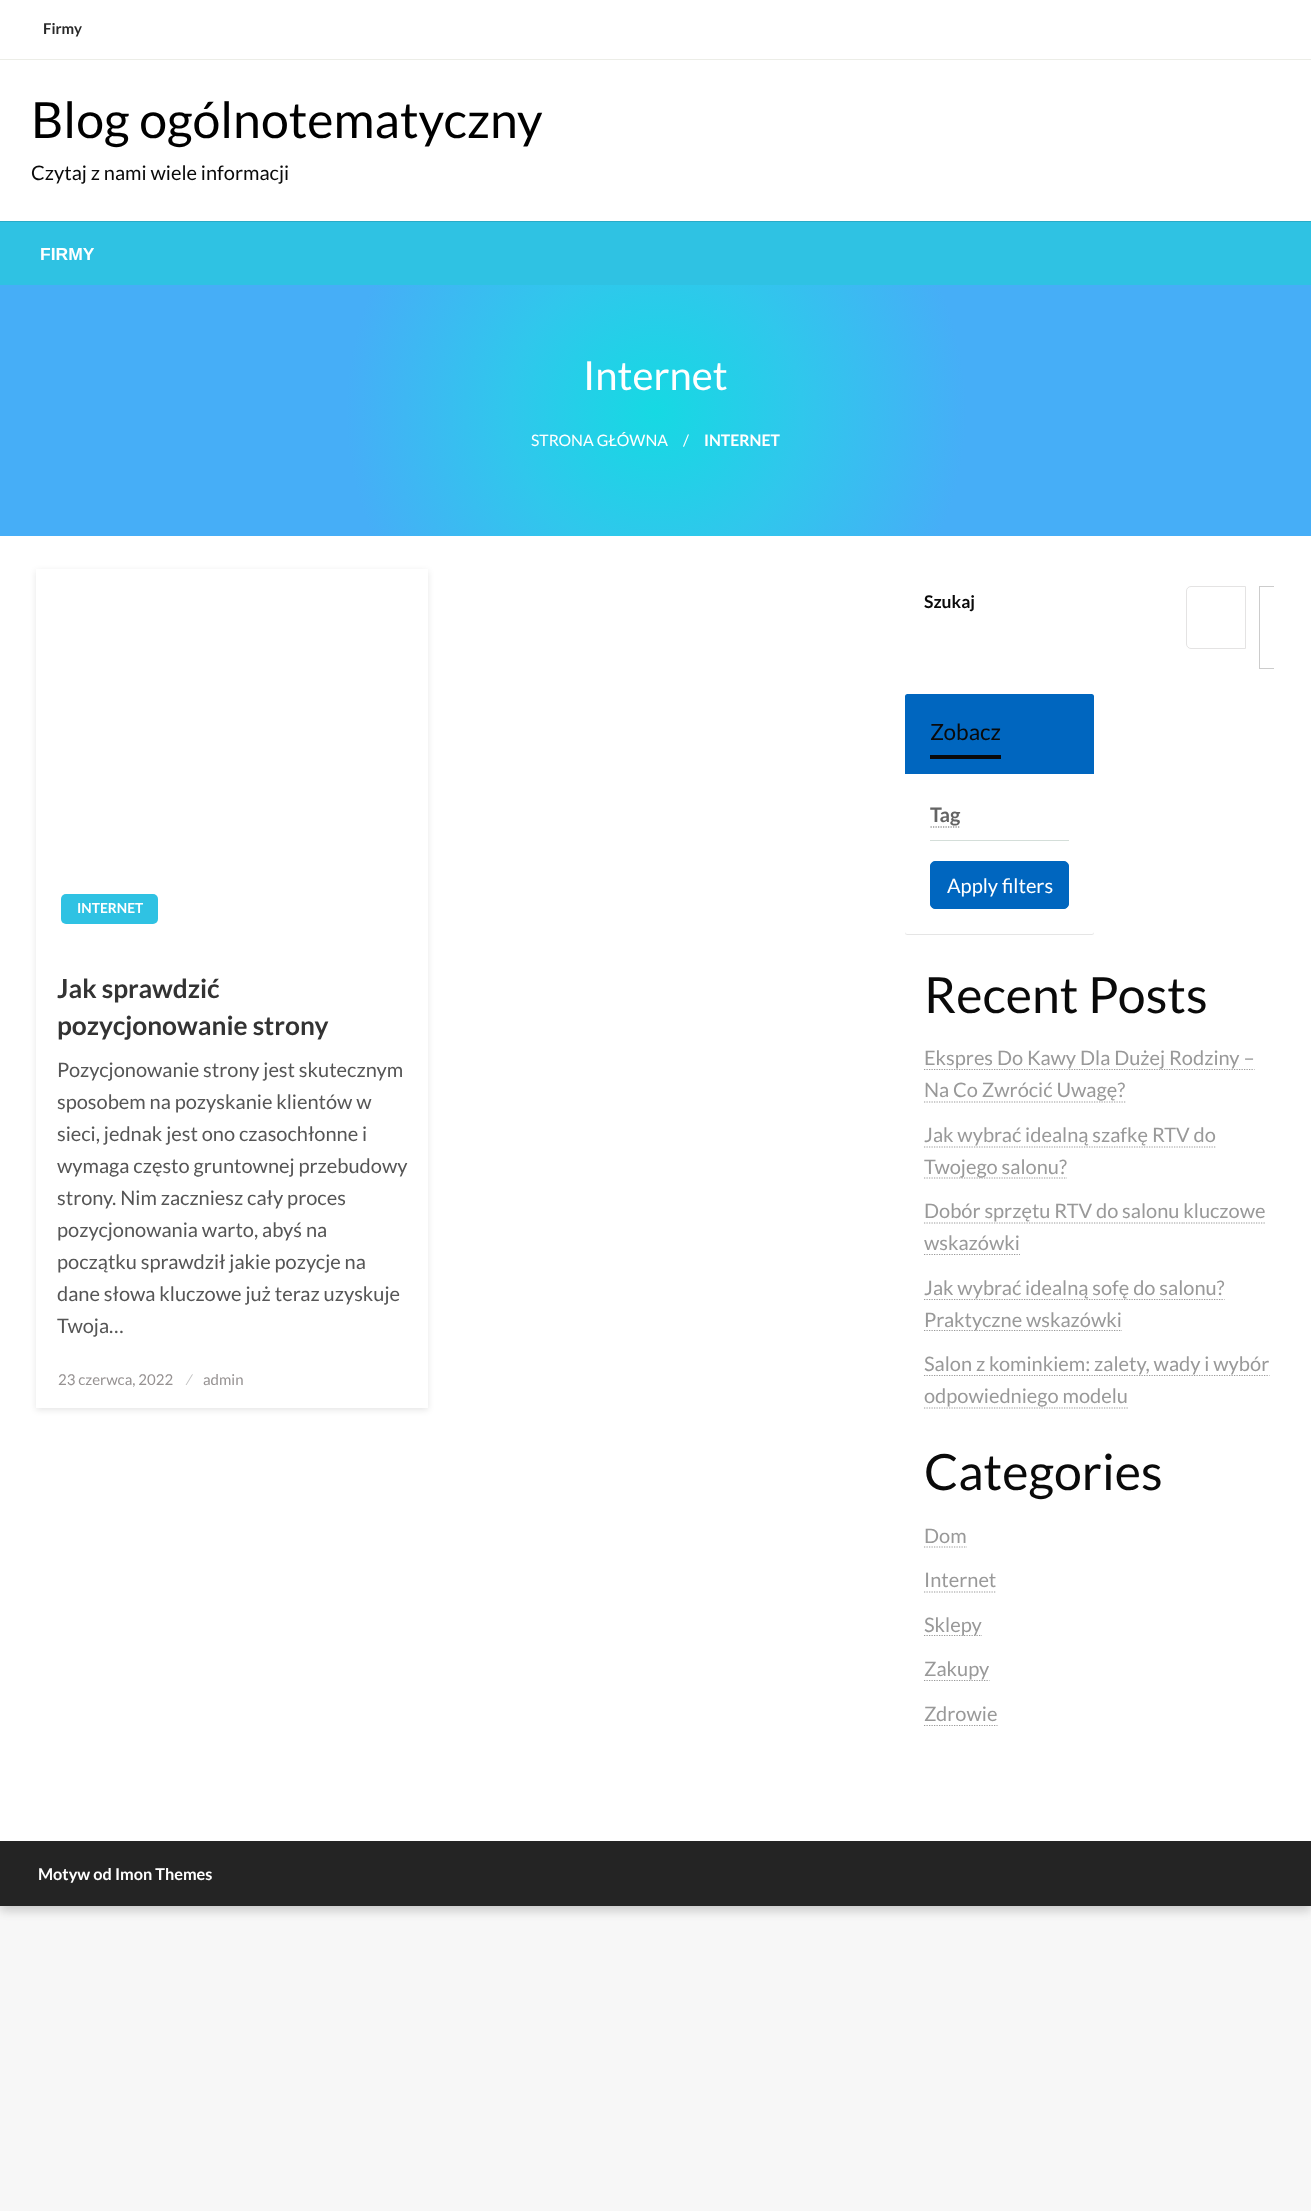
<!DOCTYPE html>
<meta charset="utf-8">
<style>body { margin: 0 } canvas { display: block }</style>
<canvas id="canvas" width="1311" height="2211"></canvas>
<script>
window.onload = function () {
    const canvas = document.getElementById('canvas');
    const context = canvas.getContext('2d');
    context.miterLimit = 4;
    context.fontKerning = 'normal';
    let gradient;

    context.fillStyle = 'rgb(247, 247, 247)';
    context.fillRect(0, 0, 1311, 2211);
    context.fillStyle = 'rgba(0, 0, 0, 0.09)';
    context.filter = 'blur(6px)';
    context.beginPath();
    context.rect(0, 4, 1311, 1906);
    context.fill();
    context.filter = 'none';
    context.fillStyle = 'rgba(0, 0, 0, 0.1)';
    context.filter = 'blur(5px)';
    context.beginPath();
    context.rect(0, 5, 1311, 1906);
    context.fill();
    context.filter = 'none';
    context.fillStyle = 'rgb(255, 255, 255)';
    context.fillRect(0, 0, 1311, 59);
    context.fillStyle = 'rgb(236, 237, 231)';
    context.fillRect(0, 59, 1311, 1);
    context.fillStyle = 'rgb(255, 255, 255)';
    context.fillRect(0, 60, 1311, 161);
    context.fillStyle = 'rgb(47, 194, 227)';
    context.fillRect(0, 222, 1311, 63);
    context.fillStyle = 'rgb(41, 171, 200)';
    context.fillRect(0, 221, 1311, 1);
    context.fillStyle = 'rgb(255, 255, 255)';
    context.fillRect(0, 536, 1311, 1305);
    gradient = context.createRadialGradient(656, 411, 0, 656, 411, 310);
    gradient.addColorStop(0, 'rgb(22, 217, 227)');
    gradient.addColorStop(0.47, 'rgb(48, 199, 236)');
    gradient.addColorStop(1, 'rgb(70, 174, 247)');
    context.fillStyle = gradient;
    context.fillRect(0, 285, 1311, 251);
    context.fillStyle = 'rgba(0, 0, 0, 0.1)';
    context.filter = 'blur(3px)';
    context.beginPath();
    context.rect(36, 571, 392, 839);
    context.fill();
    context.filter = 'none';
    context.fillStyle = 'rgb(255, 255, 255)';
    context.fillRect(36, 569, 392, 839);
    context.fillStyle = 'rgb(47, 194, 227)';
    context.beginPath();
    context.roundRect(61, 894, 97, 30, 5);
    context.fill();
    context.beginPath();
    context.roundRect(1186.5, 586.5, 59, 62, [4.5, 0, 0, 4.5]);
    context.strokeStyle = 'rgb(228, 227, 227)';
    context.stroke();
    context.save();
    context.beginPath();
    context.rect(924, 586, 350, 108);
    context.clip();
    context.strokeStyle = 'rgb(204, 204, 204)';
    context.strokeRect(1259.5, 586.5, 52, 82);
    context.restore();
    context.fillStyle = 'rgba(0, 0, 0, 0.1)';
    context.filter = 'blur(0.5px)';
    context.beginPath();
    context.roundRect(905, 695, 189, 240, 2.5);
    context.fill();
    context.filter = 'none';
    context.fillStyle = 'rgb(255, 255, 255)';
    context.beginPath();
    context.roundRect(905, 694, 189, 240, 2.5);
    context.fill();
    context.fillStyle = 'rgb(0, 102, 191)';
    context.beginPath();
    context.roundRect(905, 694, 189, 80, [2.5, 2.5, 0, 0]);
    context.fill();
    context.fillStyle = 'rgb(10, 10, 10)';
    context.fillRect(930, 755, 71, 4);
    context.fillStyle = 'rgb(212, 222, 217)';
    context.fillRect(930, 840, 139, 1);
    context.beginPath();
    context.moveTo(930.5, 827);
    context.lineTo(960.5, 827);
    context.strokeStyle = 'rgb(100, 100, 100)';
    context.lineWidth = 1.2;
    context.setLineDash([1.25, 1.25]);
    context.stroke();
    context.fillStyle = 'rgb(0, 102, 191)';
    context.beginPath();
    context.roundRect(930.5, 861.5, 138, 47, 4.5);
    context.fill();
    context.strokeStyle = 'rgb(0, 102, 191)';
    context.lineWidth = 1;
    context.setLineDash([]);
    context.stroke();
    context.beginPath();
    context.moveTo(924, 1069.5);
    context.lineTo(1254.5, 1069.5);
    context.strokeStyle = 'rgb(153, 153, 153)';
    context.lineWidth = 1.2;
    context.setLineDash([1.25, 1.25]);
    context.stroke();
    context.beginPath();
    context.moveTo(924, 1102);
    context.lineTo(1125.5, 1102);
    context.stroke();
    context.beginPath();
    context.moveTo(924, 1147);
    context.lineTo(1216, 1147);
    context.stroke();
    context.beginPath();
    context.moveTo(924, 1178);
    context.lineTo(1067, 1178);
    context.stroke();
    context.beginPath();
    context.moveTo(924, 1223);
    context.lineTo(1183.5, 1223);
    context.stroke();
    context.beginPath();
    context.moveTo(1183.5, 1223);
    context.lineTo(1265.5, 1223);
    context.stroke();
    context.beginPath();
    context.moveTo(924, 1254.5);
    context.lineTo(1020, 1254.5);
    context.stroke();
    context.beginPath();
    context.moveTo(924, 1299.5);
    context.lineTo(1224.5, 1299.5);
    context.stroke();
    context.beginPath();
    context.moveTo(924, 1330.5);
    context.lineTo(1122, 1330.5);
    context.stroke();
    context.beginPath();
    context.moveTo(924, 1375.5);
    context.lineTo(1269.5, 1375.5);
    context.stroke();
    context.beginPath();
    context.moveTo(924, 1408);
    context.lineTo(1128, 1408);
    context.stroke();
    context.beginPath();
    context.moveTo(924, 1547);
    context.lineTo(967, 1547);
    context.stroke();
    context.beginPath();
    context.moveTo(924, 1592);
    context.lineTo(996.5, 1592);
    context.stroke();
    context.beginPath();
    context.moveTo(924, 1635.5);
    context.lineTo(982, 1635.5);
    context.stroke();
    context.beginPath();
    context.moveTo(924, 1680.5);
    context.lineTo(989.5, 1680.5);
    context.stroke();
    context.beginPath();
    context.moveTo(924, 1725.5);
    context.lineTo(997.5, 1725.5);
    context.stroke();
    context.fillStyle = 'rgb(36, 36, 36)';
    context.fillRect(0, 1841, 1311, 65);
    context.font = 'bold 15px Lato';
    context.fillStyle = 'rgb(40, 40, 40)';
    context.fillText('Firmy', 43, 34);
    context.font = '50px Lato';
    context.fillStyle = 'rgb(0, 0, 0)';
    context.fillText('Blog ogólnotematyczny', 31, 138);
    context.font = '20px Lato';
    context.fillStyle = 'rgb(10, 10, 10)';
    context.fillText('Czytaj z nami wiele informacji', 31, 180);
    context.font = 'bold 17.5px Liberation Sans';
    context.fillStyle = 'rgb(255, 255, 255)';
    context.fillText('FIRMY', 40, 260);
    context.font = '40px Lato';
    context.fillText('Internet', 583, 390);
    context.font = '15.75px Lato';
    context.fillText('STRONA GŁÓWNA', 531, 446);
    context.fillText('/', 683, 446);
    context.font = 'bold 15.75px Lato';
    context.fillText('INTERNET', 704, 446);
    context.font = 'bold 13.75px Lato';
    context.fillText('INTERNET', 77, 913);
    context.font = 'bold 26.25px Lato';
    context.fillStyle = 'rgb(51, 51, 51)';
    context.fillText('Jak sprawdzić', 57, 998);
    context.fillText('pozycjonowanie strony', 57, 1035);
    context.font = '20px Lato';
    context.fillStyle = 'rgb(86, 86, 86)';
    context.fillText('Pozycjonowanie strony jest skutecznym', 57, 1077);
    context.fillText('sposobem na pozyskanie klientów w', 57, 1109);
    context.fillText('sieci, jednak jest ono czasochłonne i', 57, 1141);
    context.fillText('wymaga często gruntownej przebudowy', 57, 1173);
    context.fillText('strony. Nim zaczniesz cały proces', 57, 1205);
    context.fillText('pozycjonowania warto, abyś na', 57, 1237);
    context.fillText('początku sprawdził jakie pozycje na', 57, 1269);
    context.fillText('dane słowa kluczowe już teraz uzyskuje', 57, 1301);
    context.fillText('Twoja…', 57, 1333);
    context.font = '15px Lato';
    context.fillStyle = 'rgb(150, 146, 146)';
    context.fillText('23 czerwca, 2022', 58, 1385);
    context.fillStyle = 'rgb(192, 192, 192)';
    context.fillText('⁄', 187, 1385);
    context.fillStyle = 'rgb(150, 146, 146)';
    context.fillText('admin', 203, 1385);
    context.font = 'bold 17.5px Lato';
    context.fillStyle = 'rgb(10, 10, 10)';
    context.fillText('Szukaj', 924, 608);
    context.font = '22.5px Lato';
    context.fillText('Zobacz', 930, 740);
    context.font = 'bold 20px Lato';
    context.fillStyle = 'rgb(100, 100, 100)';
    context.fillText('Tag', 930, 822);
    context.font = '20px Lato';
    context.fillStyle = 'rgb(255, 255, 255)';
    context.fillText('Apply filters', 947, 893);
    context.font = '50px Lato';
    context.fillStyle = 'rgb(10, 10, 10)';
    context.fillText('Recent Posts', 924, 1013);
    context.font = '20px Lato';
    context.fillStyle = 'rgb(153, 153, 153)';
    context.fillText('Ekspres Do Kawy Dla Dużej Rodziny –', 924, 1065);
    context.fillText('Na Co Zwrócić Uwagę?', 924, 1097);
    context.fillText('Jak wybrać idealną szafkę RTV do', 924, 1142);
    context.fillText('Twojego salonu?', 924, 1174);
    context.fillText('Dobór sprzętu RTV do salonu kluczowe', 924, 1218);
    context.fillText('wskazówki', 924, 1250);
    context.fillText('Jak wybrać idealną sofę do salonu?', 924, 1295);
    context.fillText('Praktyczne wskazówki', 924, 1327);
    context.fillText('Salon z kominkiem: zalety, wady i wybór', 924, 1371);
    context.fillText('odpowiedniego modelu', 924, 1403);
    context.font = '50px Lato';
    context.fillStyle = 'rgb(10, 10, 10)';
    context.fillText('Categories', 924, 1490);
    context.font = '20px Lato';
    context.fillStyle = 'rgb(153, 153, 153)';
    context.fillText('Dom', 924, 1543);
    context.fillText('Internet', 924, 1587);
    context.fillText('Sklepy', 924, 1632);
    context.fillText('Zakupy', 924, 1676);
    context.fillText('Zdrowie', 924, 1721);
    context.font = 'bold 16.25px Lato';
    context.fillStyle = 'rgb(255, 255, 255)';
    context.fillText('Motyw od Imon Themes', 38, 1880);
};
</script>
